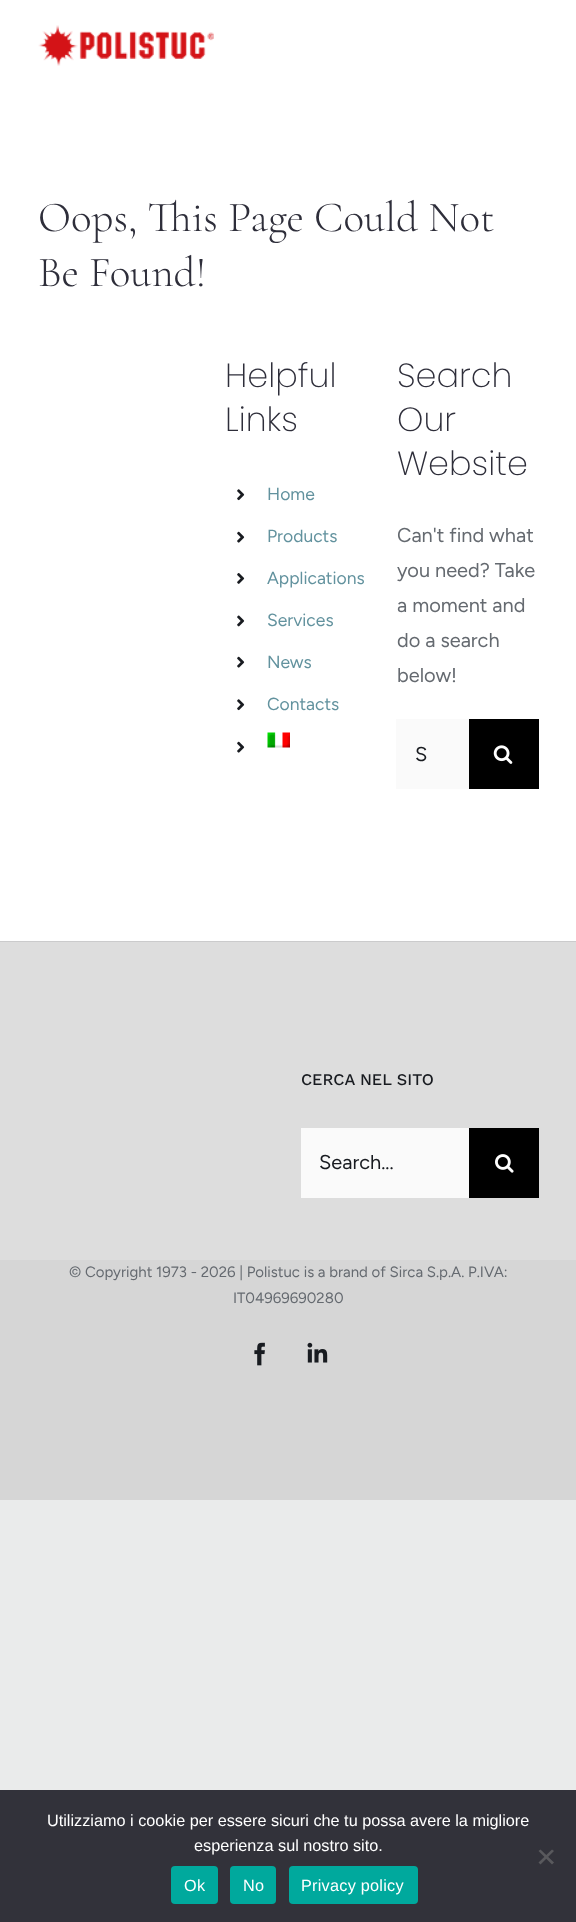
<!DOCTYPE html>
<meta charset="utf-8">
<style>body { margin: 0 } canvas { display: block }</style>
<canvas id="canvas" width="576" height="1922"></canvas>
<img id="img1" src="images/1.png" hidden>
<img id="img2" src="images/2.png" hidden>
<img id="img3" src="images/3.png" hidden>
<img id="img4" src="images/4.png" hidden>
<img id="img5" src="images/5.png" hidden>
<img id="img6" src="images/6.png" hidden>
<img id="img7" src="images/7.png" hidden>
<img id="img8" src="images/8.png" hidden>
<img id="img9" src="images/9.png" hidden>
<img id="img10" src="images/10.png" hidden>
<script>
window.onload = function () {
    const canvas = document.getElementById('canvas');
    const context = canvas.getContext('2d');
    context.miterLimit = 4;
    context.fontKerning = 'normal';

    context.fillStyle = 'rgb(234, 235, 235)';
    context.fillRect(0, 0, 576, 1922);
    context.fillStyle = 'rgb(255, 255, 255)';
    context.fillRect(0, 0, 576, 941);
    context.drawImage(document.getElementById('img1'), 38, 25, 176, 41);
    context.drawImage(document.getElementById('img2'), 237, 489, 8, 12);
    context.drawImage(document.getElementById('img3'), 237, 531, 8, 12);
    context.drawImage(document.getElementById('img4'), 237, 573, 8, 11);
    context.drawImage(document.getElementById('img5'), 237, 615, 8, 12);
    context.drawImage(document.getElementById('img3'), 237, 656, 8, 12);
    context.drawImage(document.getElementById('img2'), 237, 699, 8, 12);
    context.drawImage(document.getElementById('img3'), 237, 741, 8, 12);
    context.drawImage(document.getElementById('img6'), 267, 732, 23, 16);
    context.fillStyle = 'rgb(250, 250, 250)';
    context.fillRect(396, 719, 73, 70);
    context.fillStyle = 'rgb(0, 0, 0)';
    context.fillRect(469, 719, 70, 70);
    context.drawImage(document.getElementById('img7'), 493, 745, 20, 19);
    context.fillStyle = 'rgb(221, 221, 221)';
    context.fillRect(0, 942, 576, 318);
    context.fillStyle = 'rgb(203, 203, 204)';
    context.fillRect(0, 941, 576, 1);
    context.fillStyle = 'rgb(250, 250, 250)';
    context.fillRect(301, 1128, 168, 70);
    context.fillStyle = 'rgb(0, 0, 0)';
    context.fillRect(469, 1128, 70, 70);
    context.drawImage(document.getElementById('img8'), 495, 1154, 19, 19);
    context.fillStyle = 'rgb(214, 214, 214)';
    context.fillRect(0, 1260, 576, 240);
    context.drawImage(document.getElementById('img9'), 254, 1342, 11, 24);
    context.drawImage(document.getElementById('img10'), 307, 1342, 21, 21);
    context.fillStyle = 'rgb(50, 50, 58)';
    context.fillRect(0, 1790, 576, 132);
    context.fillStyle = 'rgb(89, 89, 93)';
    context.beginPath();
    context.moveTo(552, 1849.5);
    context.lineTo(554, 1851);
    context.lineTo(540.5, 1864.5);
    context.lineTo(538.5, 1862.5);
    context.closePath();
    context.fill();
    context.beginPath();
    context.moveTo(538.5, 1851);
    context.lineTo(540.5, 1849.5);
    context.lineTo(554, 1862.5);
    context.lineTo(552, 1864.5);
    context.closePath();
    context.fill();
    context.fillStyle = 'rgb(0, 169, 157)';
    context.beginPath();
    context.roundRect(171, 1866, 47, 38, 4);
    context.fill();
    context.beginPath();
    context.roundRect(230, 1866, 46, 38, 4);
    context.fill();
    context.beginPath();
    context.roundRect(289, 1866, 129, 38, 4);
    context.fill();
    context.font = '300 43px Cormorant Garamond';
    context.fillStyle = 'rgb(46, 46, 58)';
    context.fillText('Oops, This Page Could Not', 38, 231);
    context.fillText('Be Found!', 38, 286);
    context.font = '200 33.5px Poppins';
    context.fillText('Helpful', 225, 387);
    context.fillText('Links', 225, 431);
    context.font = '17.5px Figtree';
    context.fillStyle = 'rgb(98, 146, 158)';
    context.fillText('Home', 267, 500);
    context.fillText('Products', 267, 542);
    context.fillText('Applications', 267, 584);
    context.fillText('Services', 267, 626);
    context.fillText('News', 267, 668);
    context.fillText('Contacts', 267, 710);
    context.font = '200 33.5px Poppins';
    context.fillStyle = 'rgb(46, 46, 58)';
    context.fillText('Search', 397, 387);
    context.fillText('Our', 397, 431);
    context.fillText('Website', 397, 475);
    context.font = '20px Figtree';
    context.fillStyle = 'rgb(101, 106, 112)';
    context.fillText('Can\'t find what', 397, 542);
    context.fillText('you need? Take', 397, 577);
    context.fillText('a moment and', 397, 612);
    context.fillText('do a search', 397, 647);
    context.fillText('below!', 397, 682);
    context.fillStyle = 'rgb(24, 27, 32)';
    context.fillText('S', 415, 761);
    context.font = '500 16.25px Work Sans';
    context.fillText('CERCA NEL SITO', 301, 1085);
    context.font = '20px Figtree';
    context.fillText('Search...', 319, 1169);
    context.font = '15px Figtree';
    context.fillStyle = 'rgb(101, 106, 112)';
    context.fillText('© Copyright 1973 - 2026 | Polistuc is a brand of Sirca S.p.A. P.IVA:', 69, 1277);
    context.fillText('IT04969690280', 233, 1303);
    context.font = '16.25px Liberation Sans';
    context.fillStyle = 'rgb(255, 255, 255)';
    context.fillText('Utilizziamo i cookie per essere sicuri che tu possa avere la migliore', 47, 1826);
    context.fillText('esperienza sul nostro sito.', 194, 1851);
    context.letterSpacing = '0.25px';
    context.fillText('Ok', 184, 1891);
    context.fillText('No', 243, 1891);
    context.fillText('Privacy policy', 301, 1891);
};
</script>
